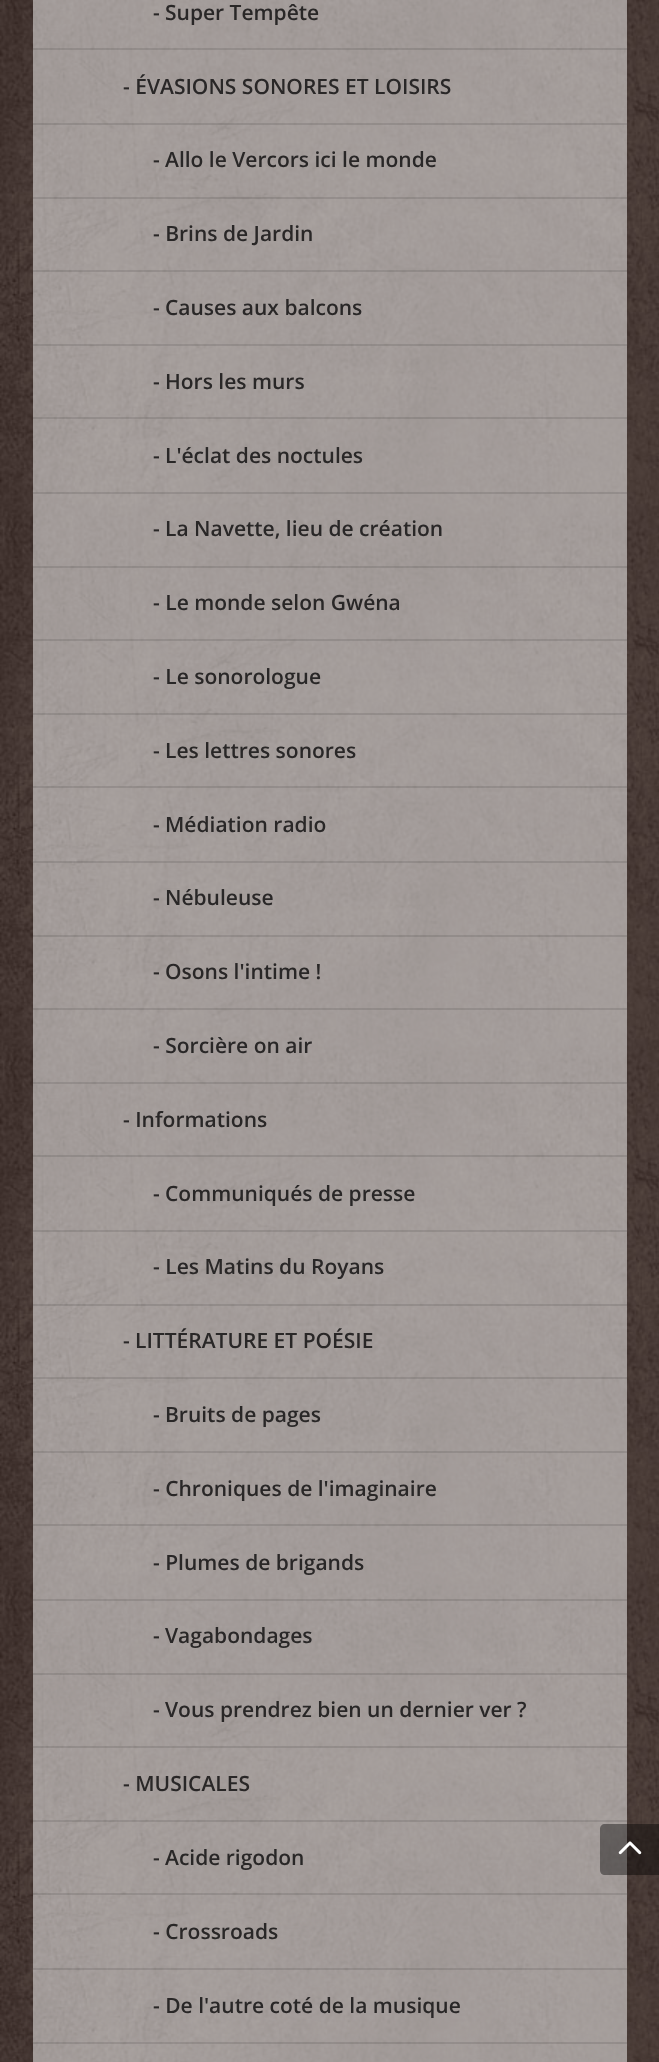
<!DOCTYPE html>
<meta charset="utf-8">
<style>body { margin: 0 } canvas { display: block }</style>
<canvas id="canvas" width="659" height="2062"></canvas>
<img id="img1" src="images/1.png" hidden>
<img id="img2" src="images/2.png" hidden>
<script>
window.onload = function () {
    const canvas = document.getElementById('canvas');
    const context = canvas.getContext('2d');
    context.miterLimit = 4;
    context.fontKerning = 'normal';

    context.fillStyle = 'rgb(255, 255, 255)';
    context.fillRect(0, 0, 659, 2062);
    context.drawImage(document.getElementById('img1'), 0, 0, 659, 2062);
    context.fillStyle = 'rgba(0, 0, 0, 0.1)';
    context.fillRect(33, 48, 594, 2);
    context.fillRect(33, 1082, 594, 2);
    context.fillRect(33, 123, 594, 2);
    context.fillRect(33, 197, 594, 2);
    context.fillRect(33, 270, 594, 2);
    context.fillRect(33, 344, 594, 2);
    context.fillRect(33, 417, 594, 2);
    context.fillRect(33, 492, 594, 2);
    context.fillRect(33, 566, 594, 2);
    context.fillRect(33, 639, 594, 2);
    context.fillRect(33, 713, 594, 2);
    context.fillRect(33, 786, 594, 2);
    context.fillRect(33, 861, 594, 2);
    context.fillRect(33, 935, 594, 2);
    context.fillRect(33, 1008, 594, 2);
    context.fillRect(33, 1304, 594, 2);
    context.fillRect(33, 1155, 594, 2);
    context.fillRect(33, 1230, 594, 2);
    context.fillRect(33, 1746, 594, 2);
    context.fillRect(33, 1377, 594, 2);
    context.fillRect(33, 1451, 594, 2);
    context.fillRect(33, 1524, 594, 2);
    context.fillRect(33, 1599, 594, 2);
    context.fillRect(33, 1673, 594, 2);
    context.fillRect(33, 1820, 594, 2);
    context.fillRect(33, 1893, 594, 2);
    context.fillRect(33, 1968, 594, 2);
    context.fillRect(33, 2042, 594, 2);
    context.fillStyle = 'rgba(0, 0, 0, 0.4)';
    context.beginPath();
    context.moveTo(605, 1824);
    context.lineTo(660, 1824);
    context.lineTo(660, 1875);
    context.lineTo(605, 1875);
    context.bezierCurveTo(602, 1875, 600, 1873, 600, 1870);
    context.lineTo(600, 1829);
    context.bezierCurveTo(600, 1826, 602, 1824, 605, 1824);
    context.closePath();
    context.fill();
    context.drawImage(document.getElementById('img2'), 618, 1841, 24, 14);
    context.font = '600 21px Open Sans';
    context.fillStyle = 'rgb(41, 39, 39)';
    context.fillText('-', 153, 20);
    context.fillText('Super Tempête', 165, 20);
    context.fillText('- ÉVASIONS SONORES ET LOISIRS', 123, 94);
    context.fillText('-', 153, 167);
    context.fillText('Allo le Vercors ici le monde', 165, 167);
    context.fillText('- Brins de Jardin', 153, 241);
    context.fillText('-', 153, 315);
    context.fillText('Causes aux balcons', 165, 315);
    context.fillText('-', 153, 389);
    context.fillText('Hors les murs', 165, 389);
    context.fillText('-', 153, 463);
    context.fillText('L\'éclat des noctules', 165, 463);
    context.fillText('-', 153, 536);
    context.fillText('La Navette, lieu de création', 165, 536);
    context.fillText('- Le monde selon Gwéna', 153, 610);
    context.fillText('- Le sonorologue', 153, 684);
    context.fillText('-', 153, 758);
    context.fillText('Les lettres sonores', 165, 758);
    context.fillText('-', 153, 832);
    context.fillText('Médiation radio', 165, 832);
    context.fillText('-', 153, 905);
    context.fillText('Nébuleuse', 165, 905);
    context.fillText('-', 153, 979);
    context.fillText('Osons l\'intime !', 165, 979);
    context.fillText('- Sorcière on air', 153, 1053);
    context.fillText('- Informations', 123, 1127);
    context.fillText('-', 153, 1201);
    context.fillText('Communiqués de presse', 165, 1201);
    context.fillText('- Les Matins du Royans', 153, 1274);
    context.fillText('-', 123, 1348);
    context.fillText('LITTÉRATURE ET POÉSIE', 135, 1348);
    context.fillText('-', 153, 1422);
    context.fillText('Bruits de pages', 165, 1422);
    context.fillText('- Chroniques de l\'imaginaire', 153, 1496);
    context.fillText('- Plumes de brigands', 153, 1570);
    context.fillText('-', 153, 1643);
    context.fillText('Vagabondages', 165, 1643);
    context.fillText('-', 153, 1717);
    context.fillText('Vous prendrez bien un dernier ver ?', 165, 1717);
    context.fillText('- MUSICALES', 123, 1791);
    context.fillText('-', 153, 1865);
    context.fillText('Acide rigodon', 165, 1865);
    context.fillText('- Crossroads', 153, 1939);
    context.fillText('- De l\'autre coté de la musique', 153, 2013);
};
</script>
